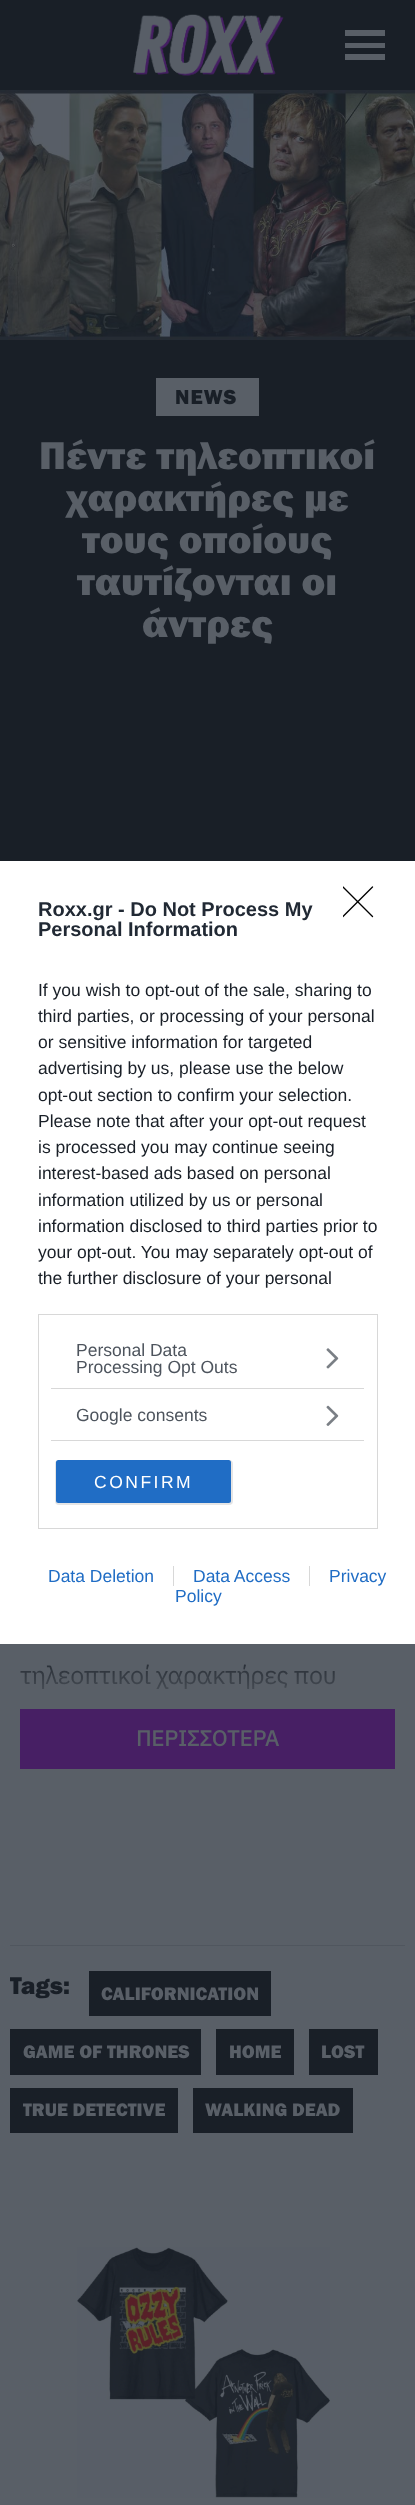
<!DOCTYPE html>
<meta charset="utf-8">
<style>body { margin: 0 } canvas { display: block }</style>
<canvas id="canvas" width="415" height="2505"></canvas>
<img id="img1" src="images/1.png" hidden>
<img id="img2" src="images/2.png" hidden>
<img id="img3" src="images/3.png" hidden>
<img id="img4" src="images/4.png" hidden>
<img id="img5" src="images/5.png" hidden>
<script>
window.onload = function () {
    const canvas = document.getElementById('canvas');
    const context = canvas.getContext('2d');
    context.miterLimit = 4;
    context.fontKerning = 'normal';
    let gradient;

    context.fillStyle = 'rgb(25, 31, 39)';
    context.fillRect(0, 0, 415, 2505);
    context.drawImage(document.getElementById('img1'), 133, 14, 151, 62);
    context.fillStyle = 'rgb(89, 95, 103)';
    context.fillRect(345, 30, 40, 6);
    context.fillRect(345, 43, 40, 5);
    context.fillRect(345, 54, 40, 6);
    context.drawImage(document.getElementById('img2'), 0, 90, 415, 250);
    context.fillRect(156, 378, 103, 38);
    context.fillRect(0, 1644, 415, 861);
    context.fillStyle = 'rgb(71, 31, 100)';
    context.fillRect(20, 1709, 375, 60);
    context.fillStyle = 'rgb(80, 86, 94)';
    context.fillRect(10, 1945, 395, 1);
    context.fillStyle = 'rgb(25, 31, 39)';
    context.fillRect(89, 1971, 182, 45);
    context.fillRect(10, 2029, 191, 46);
    context.fillRect(216, 2029, 78, 46);
    context.fillRect(309, 2029, 69, 46);
    context.fillRect(10, 2088, 168, 45);
    context.fillRect(193, 2088, 160, 45);
    context.drawImage(document.getElementById('img3'), 77, 2247, 253, 251);
    context.fillStyle = 'rgb(255, 255, 255)';
    context.fillRect(0, 861, 415, 783);
    context.save();
    context.beginPath();
    context.rect(343, 886, 31, 32);
    context.clip();
    context.beginPath();
    context.moveTo(343, 887);
    context.lineTo(372.5, 916.5);
    context.moveTo(372.5, 887);
    context.lineTo(343, 916.5);
    context.strokeStyle = 'rgb(0, 0, 0)';
    context.lineWidth = 1.3;
    context.lineCap = 'round';
    context.lineJoin = 'round';
    context.stroke();
    context.restore();
    context.strokeStyle = 'rgb(216, 216, 216)';
    context.strokeRect(38.5, 1314.5, 339, 214);
    context.fillStyle = 'rgb(216, 216, 216)';
    context.fillRect(51, 1388, 313, 1);
    context.drawImage(document.getElementById('img4'), 326, 1348, 13, 21);
    context.fillRect(51, 1440, 313, 1);
    context.drawImage(document.getElementById('img5'), 326, 1405, 13, 21);
    context.fillStyle = 'rgba(0, 0, 0, 0.1)';
    context.filter = 'blur(0.5px)';
    context.beginPath();
    context.roundRect(55, 1460, 178, 45, 4);
    context.fill();
    context.filter = 'none';
    context.fillStyle = 'rgb(32, 109, 197)';
    context.beginPath();
    context.roundRect(56, 1460, 175, 43, 2.5);
    context.fill();
    context.fillStyle = 'rgb(216, 216, 216)';
    context.fillRect(173, 1566, 1, 20);
    context.fillRect(309, 1566, 1, 20);
    context.letterSpacing = '1px';
    context.font = '900 21px Franklin Gothic';
    context.fillStyle = 'rgb(25, 31, 39)';
    context.fillText('NEWS', 175, 404);
    context.letterSpacing = '0px';
    context.font = '900 40px Franklin Gothic';
    context.fillStyle = 'rgb(89, 95, 103)';
    context.fillText('Πέντε τηλεοπτικοί', 39, 469);
    context.fillText('χαρακτήρες με', 66, 511);
    context.fillText('τους οποίους', 82, 553);
    context.fillText('ταυτίζονται οι', 77, 595);
    context.fillText('άντρες', 142, 637);
    context.letterSpacing = '-0.4px';
    context.font = '25px IBM Plex Sans';
    context.fillStyle = 'rgb(25, 31, 39)';
    context.fillText('τηλεοπτικοί χαρακτήρες που', 20, 1684);
    gradient = context.createLinearGradient(208, 1649, 208, 1709);
    gradient.addColorStop(0, 'rgba(89, 95, 103, 0)');
    gradient.addColorStop(1, 'rgb(89, 95, 103)');
    context.fillStyle = gradient;
    context.fillRect(20, 1664, 315, 25);
    context.font = '500 22.5px IBM Plex Sans';
    context.fillStyle = 'rgb(89, 95, 103)';
    context.fillText('ΠΕΡΙΣΣΟΤΕΡΑ', 136, 1746);
    context.letterSpacing = '0px';
    context.font = '900 25px Franklin Gothic';
    context.fillStyle = 'rgb(25, 31, 39)';
    context.fillText('Tags:', 10, 1994);
    context.font = '900 18.75px Franklin Gothic';
    context.fillStyle = 'rgb(89, 95, 103)';
    context.fillText('CALIFORNICATION', 101, 2000);
    context.fillText('GAME OF THRONES', 23, 2058);
    context.fillText('HOME', 229, 2058);
    context.fillText('LOST', 321, 2058);
    context.fillText('TRUE DETECTIVE', 23, 2116);
    context.fillText('WALKING DEAD', 205, 2116);
    context.font = 'bold 20px Liberation Sans';
    context.fillStyle = 'rgb(33, 41, 52)';
    context.fillText('Roxx.gr - Do Not Process My', 38, 916);
    context.fillText('Personal Information', 38, 936);
    context.font = '17.5px Liberation Sans';
    context.fillStyle = 'rgb(25, 31, 39)';
    context.fillText('If you wish to opt-out of the sale, sharing to', 38, 996);
    context.fillText('third parties, or processing of your personal', 38, 1022);
    context.fillText('or sensitive information for targeted', 38, 1048);
    context.fillText('advertising by us, please use the below', 38, 1074);
    context.fillText('opt-out section to confirm your selection.', 38, 1101);
    context.fillText('Please note that after your opt-out request', 38, 1127);
    context.fillText('is processed you may continue seeing', 38, 1153);
    context.fillText('interest-based ads based on personal', 38, 1179);
    context.fillText('information utilized by us or personal', 38, 1206);
    context.fillText('information disclosed to third parties prior to', 38, 1232);
    context.fillText('your opt-out. You may separately opt-out of', 38, 1258);
    context.fillText('the further disclosure of your personal', 38, 1284);
    context.fillStyle = 'rgb(77, 84, 93)';
    context.fillText('Personal Data', 76, 1356);
    context.fillText('Processing Opt Outs', 76, 1373);
    context.fillText('Google consents', 76, 1421);
    context.letterSpacing = '2.5px';
    context.fillStyle = 'rgb(255, 255, 255)';
    context.fillText('CONFIRM', 94, 1488);
    context.letterSpacing = '0px';
    context.fillStyle = 'rgb(32, 109, 197)';
    context.fillText('Data Deletion', 48, 1582);
    context.fillText('Data Access', 193, 1582);
    context.fillText('Privacy', 329, 1582);
    context.fillText('Policy', 175, 1602);
};
</script>
